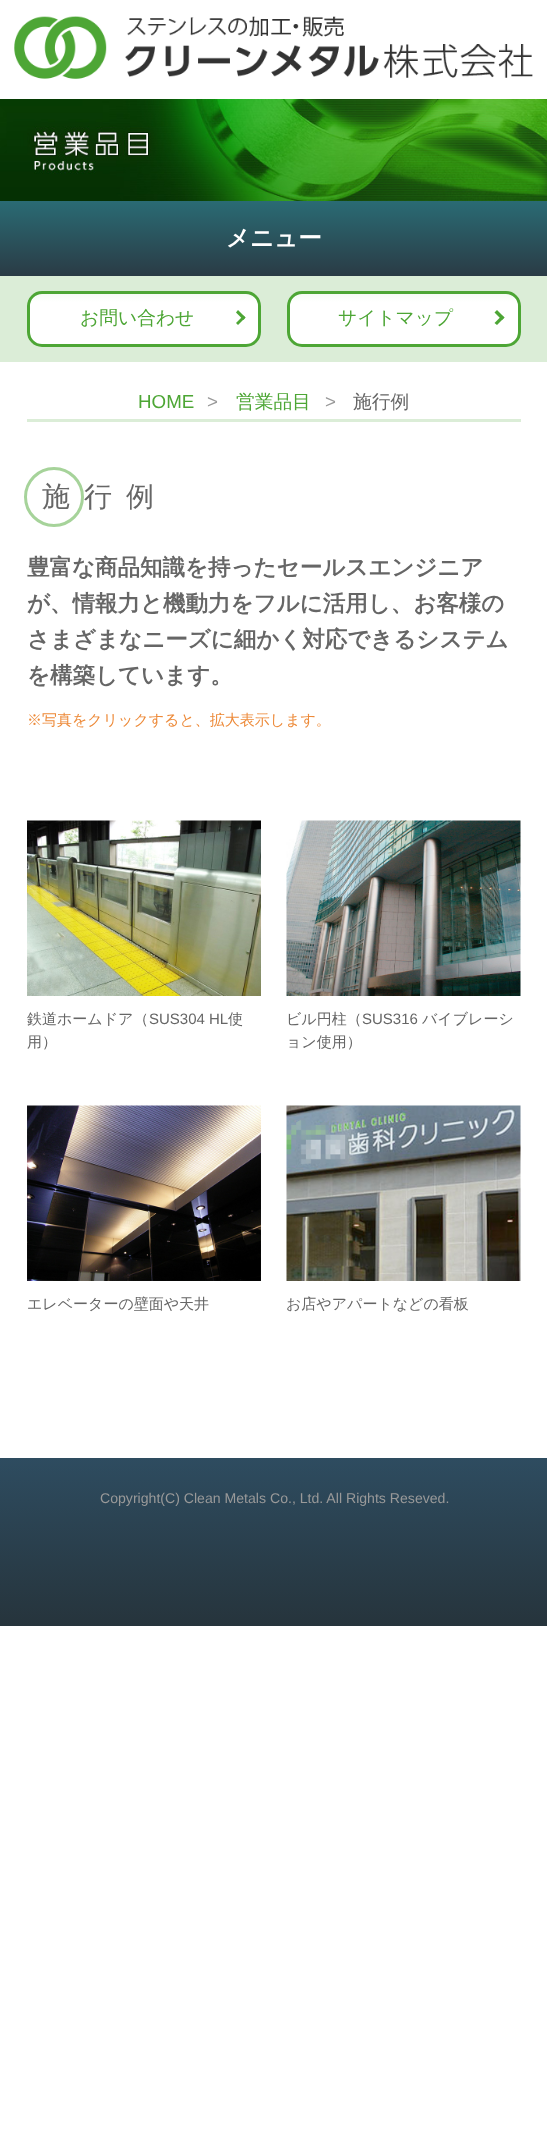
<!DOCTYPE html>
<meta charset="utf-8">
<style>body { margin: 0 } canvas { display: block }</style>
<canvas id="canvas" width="547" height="2139"></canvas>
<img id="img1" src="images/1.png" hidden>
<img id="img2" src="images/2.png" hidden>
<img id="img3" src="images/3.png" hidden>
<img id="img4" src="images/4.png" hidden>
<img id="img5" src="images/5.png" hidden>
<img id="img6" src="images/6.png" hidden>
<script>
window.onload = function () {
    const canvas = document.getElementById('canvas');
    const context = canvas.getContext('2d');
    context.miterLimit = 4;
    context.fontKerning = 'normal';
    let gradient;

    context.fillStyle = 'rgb(255, 255, 255)';
    context.fillRect(0, 0, 547, 2139);
    context.drawImage(document.getElementById('img1'), 14, 16, 519, 63);
    context.drawImage(document.getElementById('img2'), 0, 99, 547, 102);
    gradient = context.createLinearGradient(274, 201, 274, 276);
    gradient.addColorStop(0, 'rgb(42, 107, 116)');
    gradient.addColorStop(1, 'rgb(42, 59, 69)');
    context.fillStyle = gradient;
    context.fillRect(0, 201, 547, 75);
    context.fillStyle = 'rgb(219, 237, 215)';
    context.fillRect(0, 276, 547, 86);
    context.save();
    context.beginPath();
    context.roundRect(27, 291, 234, 56, 15);
    context.clip();
    gradient = context.createLinearGradient(144, 294, 144, 344);
    gradient.addColorStop(0, 'rgb(246, 251, 245)');
    gradient.addColorStop(0.16, 'rgb(255, 255, 255)');
    gradient.addColorStop(1, 'rgb(255, 255, 255)');
    context.fillStyle = gradient;
    context.fillRect(27, 294, 234, 50);
    context.restore();
    context.beginPath();
    context.roundRect(28.5, 292.5, 231, 53, 13.5);
    context.strokeStyle = 'rgb(77, 166, 53)';
    context.lineWidth = 3;
    context.stroke();
    context.fillStyle = 'rgb(77, 166, 53)';
    context.beginPath();
    context.moveTo(238, 310);
    context.lineTo(245.5, 317.5);
    context.lineTo(243.5, 320);
    context.lineTo(236, 312.5);
    context.closePath();
    context.fill();
    context.beginPath();
    context.moveTo(243.5, 315.5);
    context.lineTo(245.5, 317.5);
    context.lineTo(238, 325);
    context.lineTo(236, 323);
    context.closePath();
    context.fill();
    context.save();
    context.beginPath();
    context.roundRect(287, 291, 234, 56, 15);
    context.clip();
    gradient = context.createLinearGradient(404, 294, 404, 344);
    gradient.addColorStop(0, 'rgb(246, 251, 245)');
    gradient.addColorStop(0.16, 'rgb(255, 255, 255)');
    gradient.addColorStop(1, 'rgb(255, 255, 255)');
    context.fillStyle = gradient;
    context.fillRect(287, 294, 234, 50);
    context.restore();
    context.beginPath();
    context.roundRect(288.5, 292.5, 231, 53, 13.5);
    context.stroke();
    context.beginPath();
    context.moveTo(497, 310);
    context.lineTo(504.5, 317.5);
    context.lineTo(502, 320);
    context.lineTo(494.5, 312.5);
    context.closePath();
    context.fill();
    context.beginPath();
    context.moveTo(502, 315.5);
    context.lineTo(504.5, 317.5);
    context.lineTo(497, 325);
    context.lineTo(494.5, 323);
    context.closePath();
    context.fill();
    context.fillStyle = 'rgb(219, 237, 215)';
    context.fillRect(27, 419, 494, 3);
    context.beginPath();
    context.arc(54, 497, 28.5, 0, 2 * Math.PI);
    context.strokeStyle = 'rgb(166, 211, 154)';
    context.stroke();
    context.drawImage(document.getElementById('img3'), 27, 820, 234, 176);
    context.drawImage(document.getElementById('img4'), 286, 820, 235, 176);
    context.drawImage(document.getElementById('img5'), 27, 1105, 234, 176);
    context.drawImage(document.getElementById('img6'), 286, 1105, 235, 176);
    gradient = context.createLinearGradient(274, 1458, 274, 1626);
    gradient.addColorStop(0, 'rgb(46, 76, 96)');
    gradient.addColorStop(1, 'rgb(38, 52, 60)');
    context.fillStyle = gradient;
    context.fillRect(0, 1458, 547, 168);
    context.font = 'bold 23.5px WenQuanYi Zen Hei';
    context.fillStyle = 'rgb(255, 255, 255)';
    context.fillText('メニュー', 226, 246);
    context.font = '500 18.75px WenQuanYi Zen Hei';
    context.fillStyle = 'rgb(77, 166, 53)';
    context.fillText('お問い合わせ', 80, 324);
    context.fillText('サイトマップ', 338, 324);
    context.font = '18.75px Liberation Sans';
    context.fillText('HOME', 138, 408);
    context.fillStyle = 'rgb(153, 153, 153)';
    context.fillText('>', 207, 408);
    context.font = '500 18.75px WenQuanYi Zen Hei';
    context.fillStyle = 'rgb(77, 166, 53)';
    context.fillText('営業品目', 236, 408);
    context.font = '18.75px Liberation Sans';
    context.fillStyle = 'rgb(153, 153, 153)';
    context.fillText('>', 325, 408);
    context.font = '500 18.75px WenQuanYi Zen Hei';
    context.fillStyle = 'rgb(102, 102, 102)';
    context.fillText('施行例', 353, 408);
    context.letterSpacing = '14px';
    context.font = '500 28px WenQuanYi Zen Hei';
    context.fillText('施行例', 42, 506);
    context.letterSpacing = '0px';
    context.font = 'bold 22.5px WenQuanYi Zen Hei';
    context.fillText('豊富な商品知識を持ったセールスエンジニア', 27, 575);
    context.fillText('が、情報力と機動力をフルに活用し、お客様の', 27, 611);
    context.fillText('さまざまなニーズに細かく対応できるシステム', 27, 647);
    context.fillText('を構築しています。', 27, 683);
    context.font = '500 15px WenQuanYi Zen Hei';
    context.fillStyle = 'rgb(237, 138, 57)';
    context.fillText('※写真をクリックすると、拡大表示します。', 27, 725);
    context.fillStyle = 'rgb(102, 102, 102)';
    context.fillText('鉄道ホームドア（', 27, 1024);
    context.font = '15px Liberation Sans';
    context.fillText('SUS304 HL', 149, 1024);
    context.font = '500 15px WenQuanYi Zen Hei';
    context.fillText('使', 228, 1024);
    context.fillText('用）', 27, 1047);
    context.fillText('ビル円柱（', 286, 1024);
    context.font = '15px Liberation Sans';
    context.fillText('SUS316', 362, 1024);
    context.font = '500 15px WenQuanYi Zen Hei';
    context.fillText('バイブレーシ', 422, 1024);
    context.fillText('ョン使用）', 286, 1047);
    context.fillText('エレベーターの壁面や天井', 27, 1309);
    context.fillText('お店やアパートなどの看板', 286, 1309);
    context.font = '14.1px Liberation Sans';
    context.fillStyle = 'rgb(153, 153, 153)';
    context.fillText('Copyright(C) Clean Metals Co., Ltd. All Rights Reseved.', 100, 1503);
};
</script>
